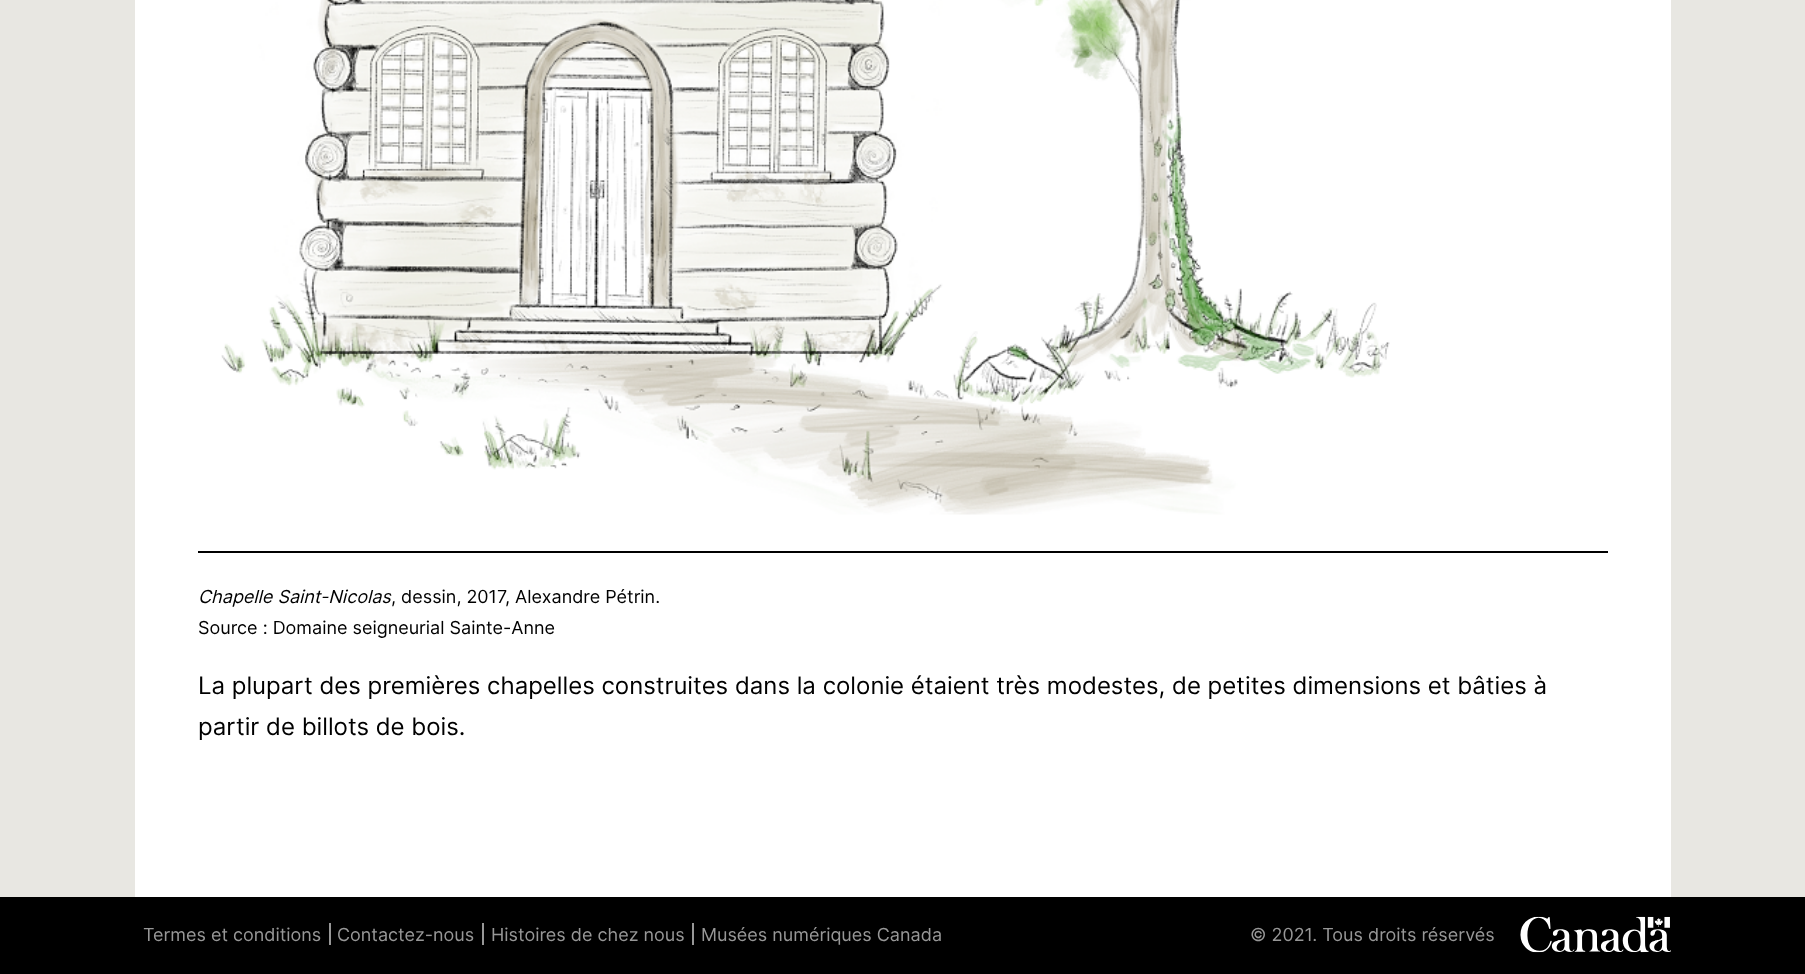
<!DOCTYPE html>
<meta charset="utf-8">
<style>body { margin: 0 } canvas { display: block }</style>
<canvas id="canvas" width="1805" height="974"></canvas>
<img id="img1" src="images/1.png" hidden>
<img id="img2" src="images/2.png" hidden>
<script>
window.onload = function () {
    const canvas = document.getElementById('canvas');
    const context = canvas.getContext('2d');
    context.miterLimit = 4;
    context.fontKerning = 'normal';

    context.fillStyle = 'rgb(232, 231, 226)';
    context.fillRect(0, 0, 1805, 974);
    context.fillStyle = 'rgb(255, 255, 255)';
    context.fillRect(135, 0, 1536, 897);
    context.drawImage(document.getElementById('img1'), 221, 0, 1169, 515);
    context.fillStyle = 'rgb(0, 0, 0)';
    context.fillRect(198, 551, 1410, 2);
    context.fillRect(0, 897, 1805, 77);
    context.fillStyle = 'rgb(151, 151, 151)';
    context.fillRect(329, 923, 2, 22);
    context.fillRect(482, 923, 2, 22);
    context.fillRect(692, 923, 2, 22);
    context.drawImage(document.getElementById('img2'), 1520, 916, 151, 37);
    context.font = 'italic 18px Inter';
    context.fillStyle = 'rgb(0, 0, 0)';
    context.fillText('Chapelle Saint-Nicolas', 198, 603);
    context.font = '18px Inter';
    context.fillText(', dessin, 2017, Alexandre Pétrin.', 391, 603);
    context.fillText('Source : Domaine seigneurial Sainte-Anne', 198, 634);
    context.font = '24px Inter';
    context.fillText('La plupart des premières chapelles construites dans la colonie étaient très modestes, de petites dimensions et bâties à', 198, 694);
    context.fillText('partir de billots de bois.', 198, 735);
    context.font = '18px Inter';
    context.fillStyle = 'rgb(151, 151, 151)';
    context.fillText('Termes et conditions', 143, 941);
    context.fillText('Contactez-nous', 337, 941);
    context.fillText('Histoires de chez nous', 491, 941);
    context.fillText('Musées numériques Canada', 701, 941);
    context.fillText('© 2021. Tous droits réservés', 1250, 941);
};
</script>
